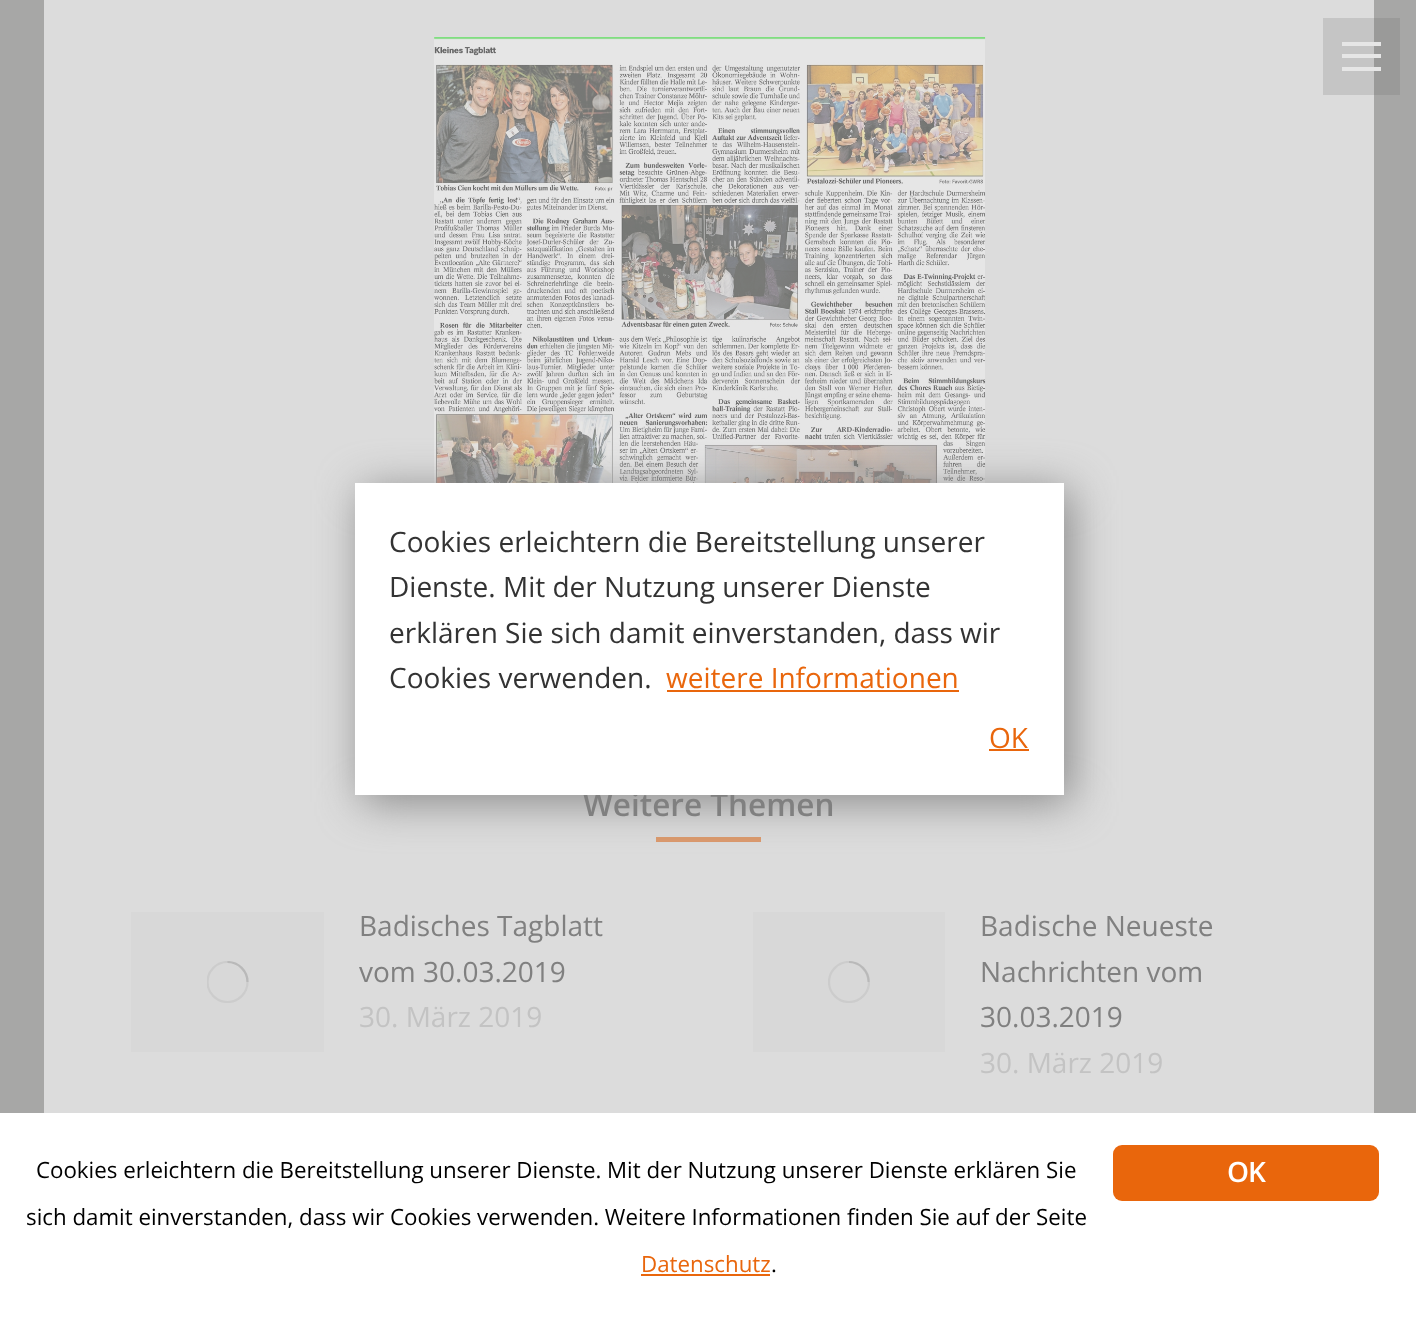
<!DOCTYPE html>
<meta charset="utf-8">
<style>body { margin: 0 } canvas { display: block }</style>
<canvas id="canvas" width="1416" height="1321"></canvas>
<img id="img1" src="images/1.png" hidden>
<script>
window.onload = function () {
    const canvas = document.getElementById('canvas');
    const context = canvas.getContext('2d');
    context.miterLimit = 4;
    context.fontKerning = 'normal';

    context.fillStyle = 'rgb(167, 167, 166)';
    context.fillRect(0, 0, 1416, 1321);
    context.fillStyle = 'rgb(154, 154, 153)';
    context.fillRect(1374, 18, 26, 77);
    context.fillStyle = 'rgb(220, 220, 220)';
    context.fillRect(44, 0, 1330, 1113);
    context.drawImage(document.getElementById('img1'), 434, 37, 552, 446);
    context.fillStyle = 'rgb(219, 153, 108)';
    context.fillRect(656, 837, 105, 5);
    context.fillStyle = 'rgb(136, 136, 136)';
    context.filter = 'blur(22px)';
    context.beginPath();
    context.rect(362, 490, 709, 312);
    context.fill();
    context.filter = 'none';
    context.fillStyle = 'rgb(197, 197, 197)';
    context.fillRect(1323, 18, 51, 77);
    context.fillStyle = 'rgb(230, 230, 230)';
    context.fillRect(1342, 54, 39, 4);
    context.fillRect(1342, 42, 39, 4);
    context.fillRect(1342, 67, 39, 4);
    context.fillStyle = 'rgb(216, 216, 216)';
    context.fillRect(131, 912, 193, 140);
    context.save();
    context.beginPath();
    context.rect(207, 961, 42, 42);
    context.clip();
    context.beginPath();
    context.arc(227.5, 982, 20, 0, 2 * Math.PI);
    context.strokeStyle = 'rgb(204, 204, 204)';
    context.lineWidth = 2.2;
    context.stroke();
    context.restore();
    context.beginPath();
    context.moveTo(247.5, 982);
    context.bezierCurveTo(247.5, 971, 238.5, 962, 227.5, 962);
    context.strokeStyle = 'rgba(128, 128, 128, 0.25)';
    context.lineWidth = 2.2;
    context.stroke();
    context.fillRect(753, 912, 192, 140);
    context.save();
    context.beginPath();
    context.rect(828, 961, 42, 42);
    context.clip();
    context.beginPath();
    context.arc(849, 982, 20, 0, 2 * Math.PI);
    context.strokeStyle = 'rgb(204, 204, 204)';
    context.stroke();
    context.restore();
    context.beginPath();
    context.moveTo(868.5, 982);
    context.bezierCurveTo(868.5, 971, 859.5, 962, 849, 962);
    context.stroke();
    context.fillStyle = 'rgb(255, 255, 255)';
    context.fillRect(0, 1113, 1416, 208);
    context.fillStyle = 'rgb(233, 102, 12)';
    context.fillRect(641, 1274, 129, 2);
    context.beginPath();
    context.roundRect(1113, 1145, 266, 56, 9);
    context.fill();
    context.font = '600 31.5px Open Sans';
    context.fillStyle = 'rgb(128, 128, 128)';
    context.fillText('Weitere Themen', 583, 816);
    context.fillStyle = 'rgb(255, 255, 255)';
    context.fillRect(355, 483, 709, 312);
    context.font = '28px Open Sans';
    context.fillStyle = 'rgb(233, 102, 12)';
    context.fillText('OK', 989, 748);
    context.fillRect(989, 749, 40, 2);
    context.fillText('weitere Informationen', 666, 688);
    context.fillRect(667, 690, 292, 2);
    context.fillStyle = 'rgb(51, 51, 51)';
    context.fillText('Cookies verwenden.', 389, 688);
    context.fillText('erklären Sie sich damit einverstanden, dass wir', 389, 643);
    context.fillText('Dienste. Mit der Nutzung unserer Dienste', 389, 597);
    context.fillText('Cookies erleichtern die Bereitstellung unserer', 389, 552);
    context.fillStyle = 'rgb(128, 128, 128)';
    context.fillText('Badisches Tagblatt', 359, 936);
    context.fillText('vom 30.03.2019', 359, 982);
    context.fillStyle = 'rgb(195, 195, 195)';
    context.fillText('30. März 2019', 359, 1027);
    context.fillStyle = 'rgb(128, 128, 128)';
    context.fillText('Badische Neueste', 980, 936);
    context.fillText('Nachrichten vom', 980, 982);
    context.fillText('30.03.2019', 980, 1027);
    context.fillStyle = 'rgb(195, 195, 195)';
    context.fillText('30. März 2019', 980, 1073);
    context.font = '22.3px Open Sans';
    context.fillStyle = 'rgb(0, 0, 0)';
    context.fillText('Cookies erleichtern die Bereitstellung unserer Dienste. Mit der Nutzung unserer Dienste erklären Sie', 36, 1178);
    context.fillText('sich damit einverstanden, dass wir Cookies verwenden. Weitere Informationen finden Sie auf der Seite', 26, 1225);
    context.fillStyle = 'rgb(233, 102, 12)';
    context.fillText('Datenschutz', 641, 1272);
    context.fillStyle = 'rgb(0, 0, 0)';
    context.fillText('.', 771, 1272);
    context.letterSpacing = '-1px';
    context.font = '600 28px Open Sans';
    context.fillStyle = 'rgb(255, 255, 255)';
    context.fillText('OK', 1227, 1182);
};
</script>
